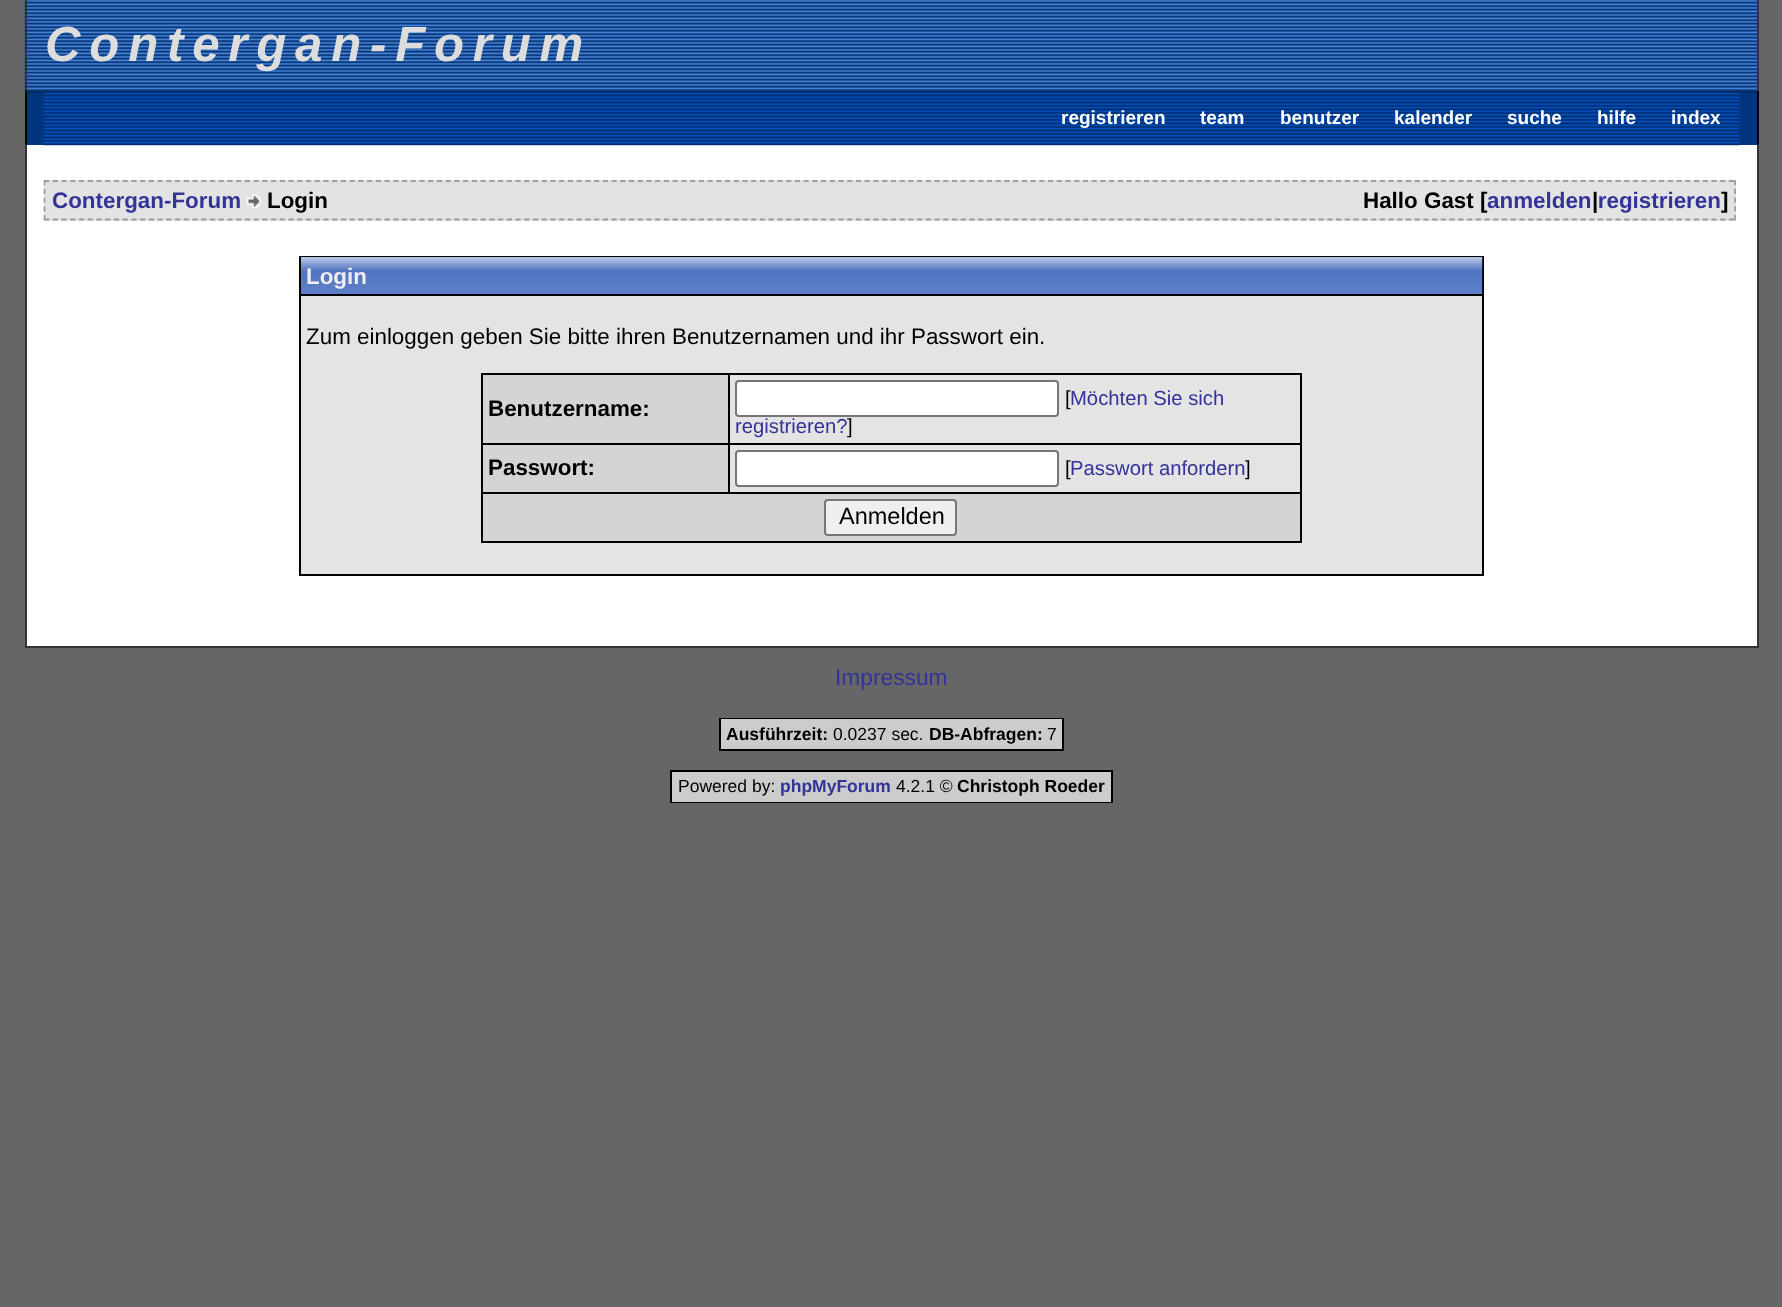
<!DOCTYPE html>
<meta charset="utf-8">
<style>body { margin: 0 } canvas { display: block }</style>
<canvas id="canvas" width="1782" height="1307"></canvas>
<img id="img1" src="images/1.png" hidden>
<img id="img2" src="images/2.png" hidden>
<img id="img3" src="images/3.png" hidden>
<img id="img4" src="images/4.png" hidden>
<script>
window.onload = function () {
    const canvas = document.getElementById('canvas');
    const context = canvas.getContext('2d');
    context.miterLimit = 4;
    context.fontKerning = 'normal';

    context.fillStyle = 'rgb(102, 102, 102)';
    context.fillRect(0, 0, 1782, 1307);
    context.drawImage(document.getElementById('img1'), 24, 0, 1733, 91);
    context.fillStyle = 'rgb(51, 51, 51)';
    context.fillRect(1757, 0, 2, 91);
    context.fillRect(25, 0, 2, 91);
    context.fillStyle = 'rgb(0, 52, 125)';
    context.fillRect(27, 93, 1730, 52);
    context.fillStyle = 'rgb(0, 42, 100)';
    context.fillRect(25, 91, 1734, 2);
    context.fillStyle = 'rgb(0, 0, 0)';
    context.fillRect(1757, 91, 2, 54);
    context.fillRect(25, 91, 2, 54);
    context.fillStyle = 'rgb(255, 255, 255)';
    context.fillRect(27, 145, 1730, 501);
    context.drawImage(document.getElementById('img2'), 43, 92, 1697, 54);
    context.fillStyle = 'rgb(51, 51, 51)';
    context.fillRect(1757, 145, 2, 503);
    context.fillRect(25, 145, 2, 457);
    context.fillStyle = 'rgb(227, 227, 227)';
    context.fillRect(44, 180, 1692, 41);
    context.beginPath();
    context.moveTo(44, 181);
    context.lineTo(1736, 181);
    context.strokeStyle = 'rgb(158, 158, 158)';
    context.lineWidth = 1.8;
    context.setLineDash([5.25, 3.48]);
    context.stroke();
    context.beginPath();
    context.moveTo(1735, 180);
    context.lineTo(1735, 220.5);
    context.setLineDash([5.25, 3.5]);
    context.stroke();
    context.beginPath();
    context.moveTo(44, 219.5);
    context.lineTo(1736, 219.5);
    context.setLineDash([5.25, 3.48]);
    context.stroke();
    context.beginPath();
    context.moveTo(44.5, 180);
    context.lineTo(44.5, 220.5);
    context.setLineDash([5.25, 3.5]);
    context.stroke();
    context.drawImage(document.getElementById('img3'), 246, 194, 15, 15);
    context.fillStyle = 'rgb(0, 0, 0)';
    context.fillRect(299, 256, 1185, 320);
    context.fillStyle = 'rgb(159, 191, 251)';
    context.fillRect(301, 257, 1181, 37);
    context.drawImage(document.getElementById('img4'), 301, 257, 1182, 37);
    context.fillStyle = 'rgb(228, 228, 228)';
    context.fillRect(301, 296, 1181, 278);
    context.fillStyle = 'rgb(0, 0, 0)';
    context.fillRect(481, 373, 821, 170);
    context.fillStyle = 'rgb(212, 212, 212)';
    context.fillRect(483, 375, 245, 68);
    context.fillStyle = 'rgb(228, 228, 228)';
    context.fillRect(730, 375, 570, 68);
    context.fillStyle = 'rgb(255, 255, 255)';
    context.beginPath();
    context.roundRect(736, 381, 322, 35, 3);
    context.fill();
    context.strokeStyle = 'rgb(118, 118, 118)';
    context.lineWidth = 2;
    context.setLineDash([]);
    context.stroke();
    context.fillStyle = 'rgb(212, 212, 212)';
    context.fillRect(483, 445, 245, 47);
    context.fillStyle = 'rgb(228, 228, 228)';
    context.fillRect(730, 445, 570, 47);
    context.fillStyle = 'rgb(255, 255, 255)';
    context.beginPath();
    context.roundRect(736, 451, 322, 35, 3);
    context.fill();
    context.stroke();
    context.fillStyle = 'rgb(212, 212, 212)';
    context.fillRect(483, 494, 817, 47);
    context.fillStyle = 'rgb(239, 239, 239)';
    context.beginPath();
    context.roundRect(825, 500, 131, 35, 3);
    context.fill();
    context.stroke();
    context.fillStyle = 'rgb(51, 51, 51)';
    context.fillRect(25, 646, 1734, 2);
    context.fillRect(25, 602, 2, 46);
    context.fillStyle = 'rgb(0, 0, 0)';
    context.fillRect(719, 718, 345, 33);
    context.fillStyle = 'rgb(204, 204, 204)';
    context.fillRect(721, 719, 341, 30);
    context.strokeStyle = 'rgb(0, 0, 0)';
    context.strokeRect(671, 771, 441, 31);
    context.fillRect(672, 772, 439, 30);
    context.letterSpacing = '8.75px';
    context.font = 'italic bold 49.25px Liberation Sans';
    context.fillStyle = 'rgb(221, 221, 221)';
    context.fillText('Contergan-Forum', 45, 61);
    context.letterSpacing = '0px';
    context.font = 'bold 19px Liberation Sans';
    context.fillStyle = 'rgb(255, 255, 255)';
    context.fillText('registrieren', 1061, 124);
    context.fillText('team', 1200, 124);
    context.fillText('benutzer', 1280, 124);
    context.fillText('kalender', 1394, 124);
    context.fillText('suche', 1507, 124);
    context.fillText('hilfe', 1597, 124);
    context.fillText('index', 1671, 124);
    context.font = 'bold 22.4px Liberation Sans';
    context.fillStyle = 'rgb(51, 51, 153)';
    context.fillText('Contergan-Forum', 52, 208);
    context.fillStyle = 'rgb(0, 0, 0)';
    context.fillText('Login', 267, 208);
    context.fillText('Hallo Gast [', 1363, 208);
    context.fillStyle = 'rgb(51, 51, 153)';
    context.fillText('anmelden registrieren', 1487, 208);
    context.fillStyle = 'rgb(0, 0, 0)';
    context.fillText('|', 1592, 208);
    context.fillText(']', 1721, 208);
    context.fillStyle = 'rgb(238, 238, 238)';
    context.fillText('Login', 306, 284);
    context.font = '22.4px Liberation Sans';
    context.fillStyle = 'rgb(0, 0, 0)';
    context.fillText('Zum einloggen geben Sie bitte ihren Benutzernamen und ihr Passwort ein.', 306, 344);
    context.font = 'bold 22.4px Liberation Sans';
    context.fillText('Benutzername:', 488, 416);
    context.font = '20.25px Liberation Sans';
    context.fillText('[', 1065, 405);
    context.fillStyle = 'rgb(51, 51, 153)';
    context.fillText('Möchten Sie sich', 1070, 405);
    context.fillText('registrieren?', 735, 433);
    context.fillStyle = 'rgb(0, 0, 0)';
    context.fillText(']', 847, 433);
    context.font = 'bold 22.4px Liberation Sans';
    context.fillText('Passwort:', 488, 475);
    context.font = '20.25px Liberation Sans';
    context.fillText('[', 1065, 475);
    context.fillStyle = 'rgb(51, 51, 153)';
    context.fillText('Passwort anfordern', 1070, 475);
    context.fillStyle = 'rgb(0, 0, 0)';
    context.fillText(']', 1245, 475);
    context.font = '23.5px Liberation Sans';
    context.fillText('Anmelden', 839, 524);
    context.font = '22.75px Liberation Sans';
    context.fillStyle = 'rgb(51, 51, 153)';
    context.fillText('Impressum', 835, 685);
    context.font = 'bold 17.5px Liberation Sans';
    context.fillStyle = 'rgb(0, 0, 0)';
    context.fillText('Ausführzeit:', 726, 740);
    context.font = '17.5px Liberation Sans';
    context.fillText('0.0237 sec.', 833, 740);
    context.font = 'bold 17.5px Liberation Sans';
    context.fillText('DB-Abfragen:', 929, 740);
    context.font = '17.5px Liberation Sans';
    context.fillText('7', 1047, 740);
    context.fillText('Powered by:', 678, 792);
    context.font = 'bold 17.5px Liberation Sans';
    context.fillStyle = 'rgb(51, 51, 153)';
    context.fillText('phpMyForum', 780, 792);
    context.font = '17.5px Liberation Sans';
    context.fillStyle = 'rgb(0, 0, 0)';
    context.fillText('4.2.1 ©', 896, 792);
    context.font = 'bold 17.5px Liberation Sans';
    context.fillText('Christoph Roeder', 957, 792);
};
</script>
